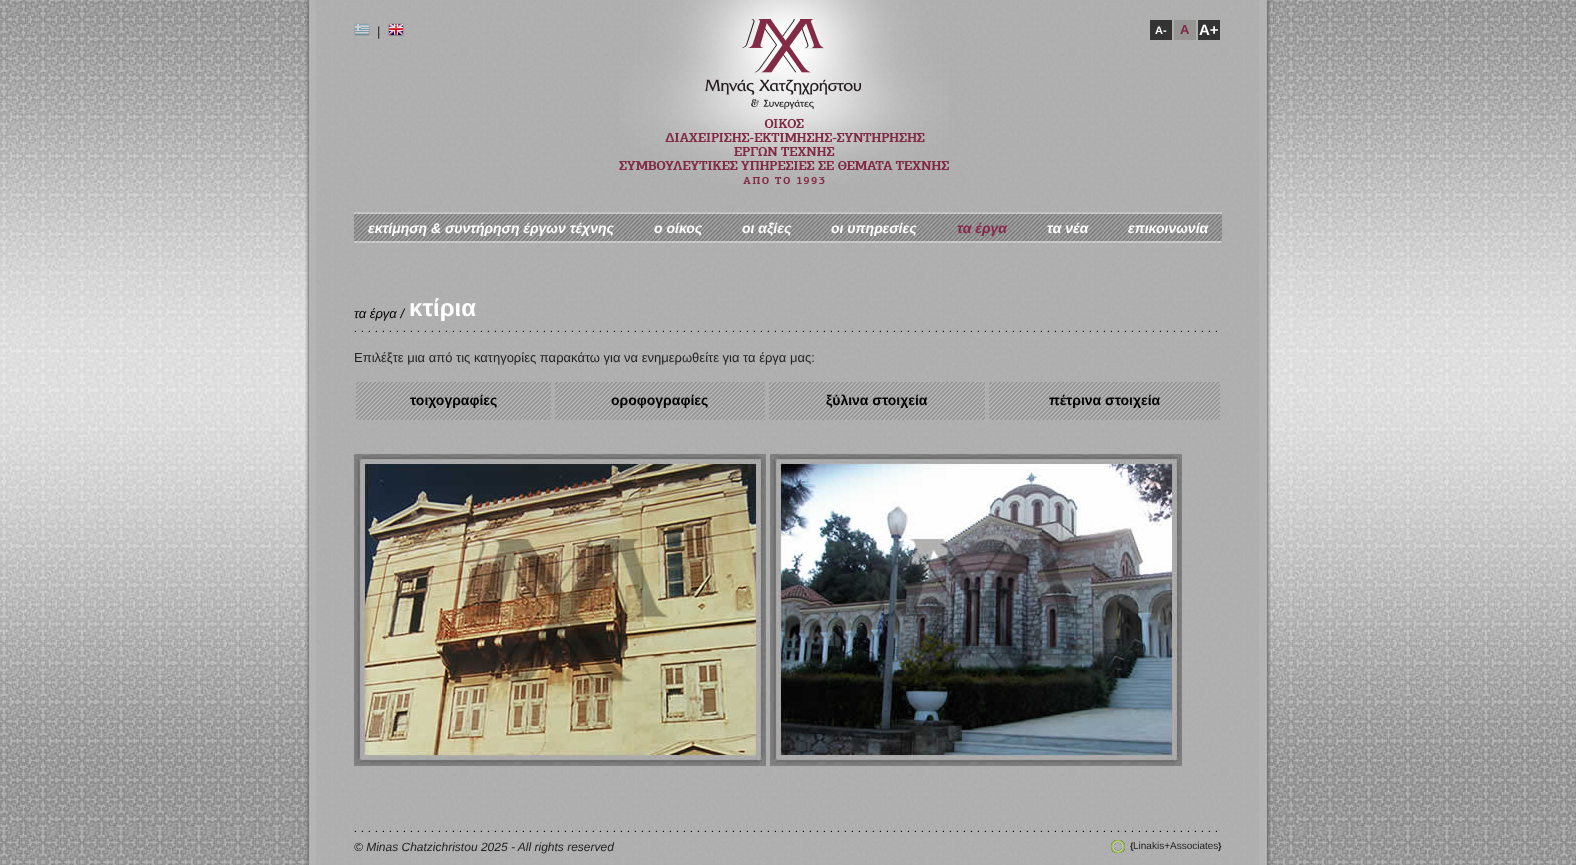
<!DOCTYPE html>
<meta charset="utf-8">
<style>body { margin: 0 } canvas { display: block }</style>
<canvas id="canvas" width="1576" height="865"></canvas>
<img id="img1" src="images/1.png" hidden>
<img id="img2" src="images/2.png" hidden>
<img id="img3" src="images/3.png" hidden>
<img id="img4" src="images/4.png" hidden>
<img id="img5" src="images/5.png" hidden>
<img id="img6" src="images/6.png" hidden>
<img id="img7" src="images/7.png" hidden>
<img id="img8" src="images/8.png" hidden>
<img id="img9" src="images/9.png" hidden>
<img id="img10" src="images/10.png" hidden>
<img id="img11" src="images/11.png" hidden>
<img id="img12" src="images/12.png" hidden>
<img id="img13" src="images/13.png" hidden>
<img id="img14" src="images/14.png" hidden>
<img id="img15" src="images/15.png" hidden>
<img id="img16" src="images/16.png" hidden>
<script>
window.onload = function () {
    const canvas = document.getElementById('canvas');
    const context = canvas.getContext('2d');
    context.miterLimit = 4;
    context.fontKerning = 'normal';

    context.fillStyle = 'rgb(255, 255, 255)';
    context.fillRect(0, 0, 1576, 865);
    context.drawImage(document.getElementById('img1'), 0, 0, 1576, 865);
    context.drawImage(document.getElementById('img2'), 305, 0, 966, 865);
    context.drawImage(document.getElementById('img3'), 316, 0, 943, 865);
    context.drawImage(document.getElementById('img4'), 354, 23, 16, 13);
    context.drawImage(document.getElementById('img5'), 388, 23, 16, 13);
    context.drawImage(document.getElementById('img6'), 619, 0, 330, 184);
    context.fillStyle = 'rgb(51, 51, 51)';
    context.fillRect(1150, 20, 22, 20);
    context.fillStyle = 'rgb(150, 150, 149)';
    context.fillRect(1174, 20, 22, 20);
    context.fillStyle = 'rgb(51, 51, 51)';
    context.fillRect(1198, 20, 22, 20);
    context.drawImage(document.getElementById('img7'), 354, 212, 868, 31);
    context.drawImage(document.getElementById('img8'), 354, 330, 863, 2);
    context.drawImage(document.getElementById('img9'), 356, 382, 195, 38);
    context.drawImage(document.getElementById('img10'), 555, 382, 210, 38);
    context.drawImage(document.getElementById('img11'), 769, 382, 216, 38);
    context.drawImage(document.getElementById('img12'), 989, 382, 231, 38);
    context.drawImage(document.getElementById('img13'), 354, 454, 412, 312);
    context.drawImage(document.getElementById('img14'), 770, 454, 412, 312);
    context.drawImage(document.getElementById('img15'), 354, 830, 863, 2);
    context.drawImage(document.getElementById('img16'), 1111, 840, 14, 13);
    context.font = '13px Liberation Sans';
    context.fillStyle = 'rgb(34, 34, 34)';
    context.fillText('|', 377, 36);
    context.font = 'bold 11px Liberation Sans';
    context.fillStyle = 'rgb(255, 255, 255)';
    context.fillText('A-', 1155, 34);
    context.font = 'bold 13px Liberation Sans';
    context.fillStyle = 'rgb(134, 38, 73)';
    context.fillText('A', 1180, 34);
    context.font = 'bold 15px Liberation Sans';
    context.fillStyle = 'rgb(255, 255, 255)';
    context.fillText('A+', 1199, 35);
    context.font = 'italic bold 14px Liberation Sans';
    context.fillText('εκτίμηση & συντήρηση έργων τέχνης', 368, 233);
    context.fillText('ο oίκος', 654, 233);
    context.fillText('οι αξίες', 742, 233);
    context.fillText('οι υπηρεσίες', 831, 233);
    context.fillStyle = 'rgb(134, 38, 73)';
    context.fillText('τα έργα', 957, 233);
    context.fillStyle = 'rgb(255, 255, 255)';
    context.fillText('τα νέα', 1047, 233);
    context.fillText('επικοινωνία', 1128, 233);
    context.font = 'italic 13px Liberation Sans';
    context.fillStyle = 'rgb(0, 0, 0)';
    context.fillText('τα έργα /', 354, 318);
    context.font = 'bold 24px Liberation Sans';
    context.fillStyle = 'rgb(255, 255, 255)';
    context.fillText('κτίρια', 409, 316);
    context.font = '13px Liberation Sans';
    context.fillStyle = 'rgb(34, 34, 34)';
    context.fillText('Επιλέξτε μια από τις κατηγορίες παρακάτω για να ενημερωθείτε για τα έργα μας:', 354, 362);
    context.font = 'bold 14px Liberation Sans';
    context.fillStyle = 'rgb(0, 0, 0)';
    context.fillText('τοιχογραφίες', 410, 405);
    context.fillText('οροφογραφίες', 611, 405);
    context.fillText('ξύλινα στοιχεία', 826, 405);
    context.fillText('πέτρινα στοιχεία', 1049, 405);
    context.font = 'italic 12px Liberation Sans';
    context.fillStyle = 'rgb(34, 34, 34)';
    context.fillText('© Minas Chatzichristou 2025 - All rights reserved', 354, 851);
    context.font = 'bold 9px Liberation Sans';
    context.fillText('{', 1130, 849);
    context.font = '10px Liberation Sans';
    context.fillText('Linakis+Associates', 1133, 849);
    context.font = 'bold 9px Liberation Sans';
    context.fillText('}', 1218, 849);
};
</script>
